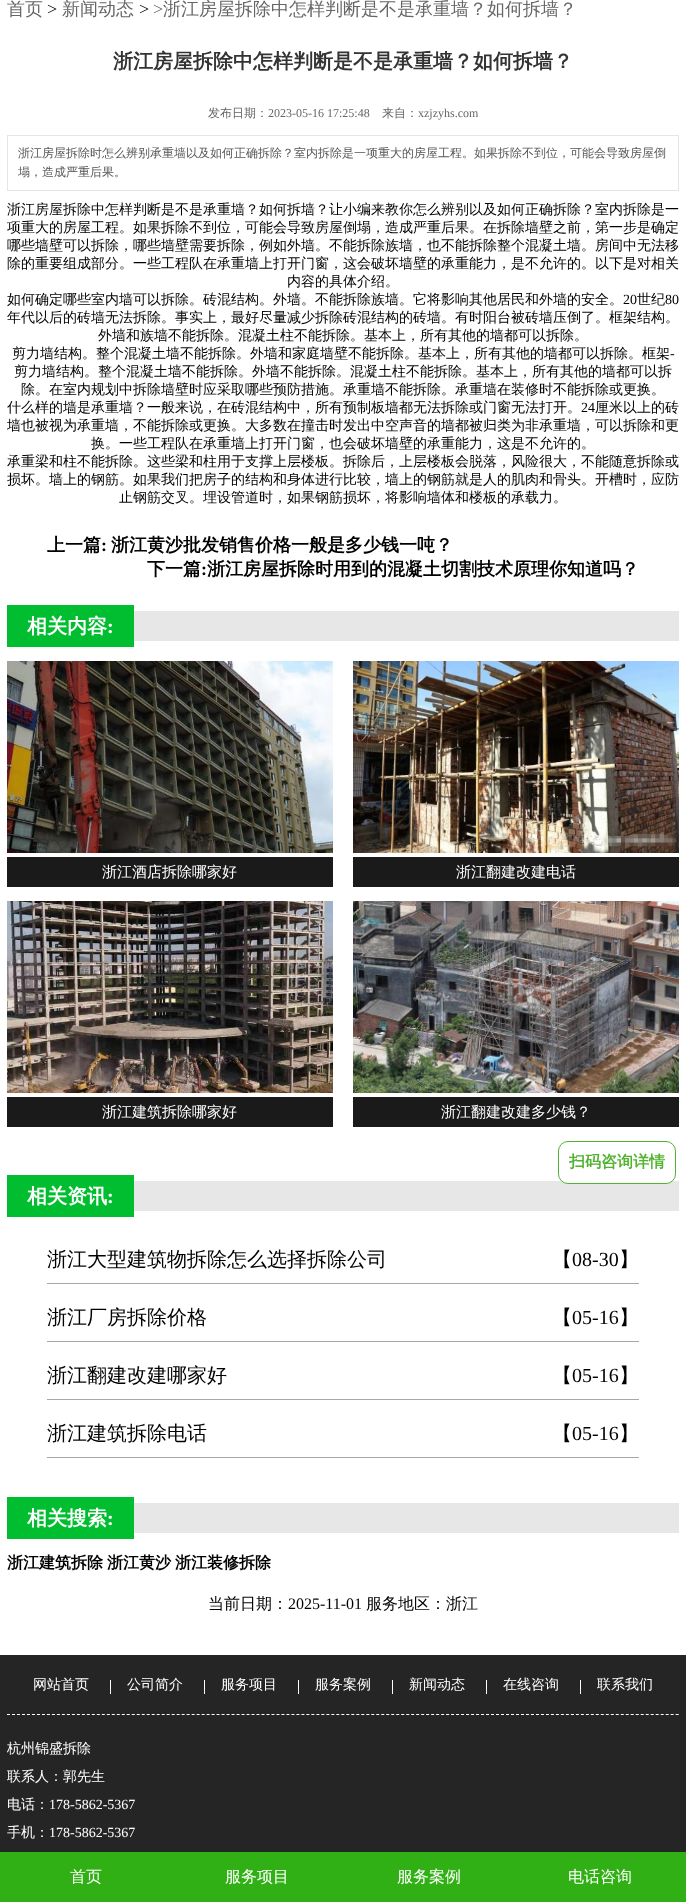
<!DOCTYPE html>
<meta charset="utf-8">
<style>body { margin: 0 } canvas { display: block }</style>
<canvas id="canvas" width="686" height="1902"></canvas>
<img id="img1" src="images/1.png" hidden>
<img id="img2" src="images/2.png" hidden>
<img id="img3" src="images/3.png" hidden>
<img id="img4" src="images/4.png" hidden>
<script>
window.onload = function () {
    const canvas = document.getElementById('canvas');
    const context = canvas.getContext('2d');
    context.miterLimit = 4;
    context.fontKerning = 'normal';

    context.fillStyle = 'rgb(255, 255, 255)';
    context.fillRect(0, 0, 686, 1902);
    context.strokeStyle = 'rgb(229, 229, 229)';
    context.strokeRect(7.5, 135.5, 671, 55);
    context.fillStyle = 'rgb(231, 231, 231)';
    context.fillRect(134, 611, 545, 30);
    context.fillStyle = 'rgb(0, 190, 47)';
    context.fillRect(7, 605, 127, 42);
    context.drawImage(document.getElementById('img1'), 7, 661, 326, 192);
    context.fillStyle = 'rgb(26, 26, 26)';
    context.fillRect(7, 857, 326, 30);
    context.drawImage(document.getElementById('img2'), 353, 661, 326, 192);
    context.fillRect(353, 857, 326, 30);
    context.drawImage(document.getElementById('img3'), 7, 901, 326, 192);
    context.fillRect(7, 1097, 326, 30);
    context.drawImage(document.getElementById('img4'), 353, 901, 326, 192);
    context.fillRect(353, 1097, 326, 30);
    context.fillStyle = 'rgb(231, 231, 231)';
    context.fillRect(134, 1181, 545, 30);
    context.fillStyle = 'rgb(0, 190, 47)';
    context.fillRect(7, 1175, 127, 42);
    context.fillStyle = 'rgb(167, 167, 167)';
    context.fillRect(47, 1283, 592, 1);
    context.fillRect(47, 1341, 592, 1);
    context.fillRect(47, 1399, 592, 1);
    context.fillRect(47, 1457, 592, 1);
    context.fillStyle = 'rgb(231, 231, 231)';
    context.fillRect(134, 1503, 545, 30);
    context.fillStyle = 'rgb(0, 190, 47)';
    context.fillRect(7, 1497, 127, 42);
    context.fillStyle = 'rgb(255, 255, 255)';
    context.beginPath();
    context.roundRect(558.5, 1141.5, 117, 42, 9.5);
    context.fill();
    context.strokeStyle = 'rgb(81, 179, 49)';
    context.stroke();
    context.fillStyle = 'rgb(37, 37, 38)';
    context.fillRect(0, 1655, 686, 197);
    context.beginPath();
    context.moveTo(7, 1714.5);
    context.lineTo(679, 1714.5);
    context.strokeStyle = 'rgb(255, 255, 255)';
    context.setLineDash([3, 1.99]);
    context.stroke();
    context.fillStyle = 'rgb(255, 255, 255)';
    context.fillRect(110, 1680, 1, 14);
    context.fillRect(204, 1680, 1, 14);
    context.fillRect(298, 1680, 1, 14);
    context.fillRect(392, 1680, 1, 14);
    context.fillRect(486, 1680, 1, 14);
    context.fillRect(580, 1680, 1, 14);
    context.fillStyle = 'rgb(49, 176, 21)';
    context.fillRect(0, 1852, 686, 50);
    context.font = '500 18px WenQuanYi Zen Hei';
    context.fillStyle = 'rgb(102, 102, 102)';
    context.fillText('首页', 7, 15);
    context.font = '18px Liberation Serif';
    context.fillStyle = 'rgb(0, 0, 0)';
    context.fillText('>', 47, 15);
    context.font = '500 18px WenQuanYi Zen Hei';
    context.fillStyle = 'rgb(102, 102, 102)';
    context.fillText('新闻动态', 62, 15);
    context.font = '18px Liberation Serif';
    context.fillStyle = 'rgb(0, 0, 0)';
    context.fillText('>', 139, 15);
    context.fillStyle = 'rgb(102, 102, 102)';
    context.fillText('>', 153, 15);
    context.font = '500 18px WenQuanYi Zen Hei';
    context.fillText('浙江房屋拆除中怎样判断是不是承重墙？如何拆墙？', 163, 15);
    context.font = 'bold 20px WenQuanYi Zen Hei';
    context.fillStyle = 'rgb(51, 51, 51)';
    context.fillText('浙江房屋拆除中怎样判断是不是承重墙？如何拆墙？', 113, 68);
    context.font = '500 12px WenQuanYi Zen Hei';
    context.fillStyle = 'rgb(102, 102, 102)';
    context.fillText('发布日期：', 208, 117);
    context.font = '12px Liberation Serif';
    context.fillText('2023-05-16 17:25:48', 268, 117);
    context.font = '500 12px WenQuanYi Zen Hei';
    context.fillText('来自：', 382, 117);
    context.font = '12px Liberation Serif';
    context.fillText('xzjzyhs.com', 418, 117);
    context.font = '500 12px WenQuanYi Zen Hei';
    context.fillStyle = 'rgb(85, 85, 85)';
    context.fillText('浙江房屋拆除时怎么辨别承重墙以及如何正确拆除？室内拆除是一项重大的房屋工程。如果拆除不到位，可能会导致房屋倒', 18, 157);
    context.fillText('塌，造成严重后果。', 18, 176);
    context.font = '500 14px WenQuanYi Zen Hei';
    context.fillStyle = 'rgb(0, 0, 0)';
    context.fillText('浙江房屋拆除中怎样判断是不是承重墙？如何拆墙？让小编来教你怎么辨别以及如何正确拆除？室内拆除是一', 7, 214);
    context.fillText('项重大的房屋工程。如果拆除不到位，可能会导致房屋倒塌，造成严重后果。在拆除墙壁之前，第一步是确定', 7, 232);
    context.fillText('哪些墙壁可以拆除，哪些墙壁需要拆除，例如外墙。不能拆除族墙，也不能拆除整个混凝土墙。房间中无法移', 7, 250);
    context.fillText('除的重要组成部分。一些工程队在承重墙上打开门窗，这会破坏墙壁的承重能力，是不允许的。以下是对相关', 7, 268);
    context.fillText('内容的具体介绍。', 287, 286);
    context.fillText('如何确定哪些室内墙可以拆除。砖混结构。外墙。不能拆除族墙。它将影响其他居民和外墙的安全。', 7, 304);
    context.font = '14px Liberation Serif';
    context.fillText('20', 623, 304);
    context.font = '500 14px WenQuanYi Zen Hei';
    context.fillText('世纪', 637, 304);
    context.font = '14px Liberation Serif';
    context.fillText('80', 665, 304);
    context.font = '500 14px WenQuanYi Zen Hei';
    context.fillText('年代以后的砖墙无法拆除。事实上，最好尽量减少拆除砖混结构的砖墙。有时阳台被砖墙压倒了。框架结构。', 7, 322);
    context.fillText('外墙和族墙不能拆除。混凝土柱不能拆除。基本上，所有其他的墙都可以拆除。', 98, 340);
    context.fillText('剪力墙结构。整个混凝土墙不能拆除。外墙和家庭墙壁不能拆除。基本上，所有其他的墙都可以拆除。框架', 12, 358);
    context.font = '14px Liberation Serif';
    context.fillText('-', 670, 358);
    context.font = '500 14px WenQuanYi Zen Hei';
    context.fillText('剪力墙结构。整个混凝土墙不能拆除。外墙不能拆除。混凝土柱不能拆除。基本上，所有其他的墙都可以拆', 14, 376);
    context.fillText('除。在室内规划中拆除墙壁时应采取哪些预防措施。承重墙不能拆除。承重墙在装修时不能拆除或更换。', 21, 394);
    context.fillText('什么样的墙是承重墙？一般来说，在砖混结构中，所有预制板墙都无法拆除或门窗无法打开。', 7, 412);
    context.font = '14px Liberation Serif';
    context.fillText('24', 581, 412);
    context.font = '500 14px WenQuanYi Zen Hei';
    context.fillText('厘米以上的砖', 595, 412);
    context.fillText('墙也被视为承重墙，不能拆除或更换。大多数在撞击时发出中空声音的墙都被归类为非承重墙，可以拆除和更', 7, 430);
    context.fillText('换。一些工程队在承重墙上打开门窗，也会破坏墙壁的承重能力，这是不允许的。', 91, 448);
    context.fillText('承重梁和柱不能拆除。这些梁和柱用于支撑上层楼板。拆除后，上层楼板会脱落，风险很大，不能随意拆除或', 7, 466);
    context.fillText('损坏。墙上的钢筋。如果我们把房子的结构和身体进行比较，墙上的钢筋就是人的肌肉和骨头。开槽时，应防', 7, 484);
    context.fillText('止钢筋交叉。埋设管道时，如果钢筋损坏，将影响墙体和楼板的承载力。', 119, 502);
    context.font = 'bold 18px WenQuanYi Zen Hei';
    context.fillText('上一篇', 47, 551);
    context.font = 'bold 18px Liberation Serif';
    context.fillText(':', 101, 551);
    context.font = 'bold 18px WenQuanYi Zen Hei';
    context.fillText('浙江黄沙批发销售价格一般是多少钱一吨？', 111, 551);
    context.fillText('下一篇', 147, 575);
    context.font = 'bold 18px Liberation Serif';
    context.fillText(':', 201, 575);
    context.font = 'bold 18px WenQuanYi Zen Hei';
    context.fillText('浙江房屋拆除时用到的混凝土切割技术原理你知道吗？', 207, 575);
    context.font = 'bold 20px WenQuanYi Zen Hei';
    context.fillStyle = 'rgb(255, 255, 255)';
    context.fillText('相关内容', 27, 633);
    context.font = 'bold 20px Liberation Serif';
    context.fillText(':', 107, 633);
    context.font = '500 15px WenQuanYi Zen Hei';
    context.fillText('浙江酒店拆除哪家好', 102, 877);
    context.fillText('浙江翻建改建电话', 456, 877);
    context.fillText('浙江建筑拆除哪家好', 102, 1117);
    context.fillText('浙江翻建改建多少钱？', 441, 1117);
    context.font = 'bold 20px WenQuanYi Zen Hei';
    context.fillText('相关资讯', 27, 1203);
    context.font = 'bold 20px Liberation Serif';
    context.fillText(':', 107, 1203);
    context.font = '500 20px WenQuanYi Zen Hei';
    context.fillStyle = 'rgb(0, 0, 0)';
    context.fillText('浙江大型建筑物拆除怎么选择拆除公司', 47, 1266);
    context.fillText('【', 552, 1266);
    context.font = '20px Liberation Serif';
    context.fillText('08-30', 572, 1266);
    context.font = '500 20px WenQuanYi Zen Hei';
    context.fillText('】', 619, 1266);
    context.fillText('浙江厂房拆除价格', 47, 1324);
    context.fillText('【', 552, 1324);
    context.font = '20px Liberation Serif';
    context.fillText('05-16', 572, 1324);
    context.font = '500 20px WenQuanYi Zen Hei';
    context.fillText('】', 619, 1324);
    context.fillText('浙江翻建改建哪家好', 47, 1382);
    context.fillText('【', 552, 1382);
    context.font = '20px Liberation Serif';
    context.fillText('05-16', 572, 1382);
    context.font = '500 20px WenQuanYi Zen Hei';
    context.fillText('】', 619, 1382);
    context.fillText('浙江建筑拆除电话', 47, 1440);
    context.fillText('【', 552, 1440);
    context.font = '20px Liberation Serif';
    context.fillText('05-16', 572, 1440);
    context.font = '500 20px WenQuanYi Zen Hei';
    context.fillText('】', 619, 1440);
    context.font = 'bold 20px WenQuanYi Zen Hei';
    context.fillStyle = 'rgb(255, 255, 255)';
    context.fillText('相关搜索', 27, 1525);
    context.font = 'bold 20px Liberation Serif';
    context.fillText(':', 107, 1525);
    context.font = 'bold 16px WenQuanYi Zen Hei';
    context.fillStyle = 'rgb(0, 0, 0)';
    context.fillText('浙江建筑拆除', 7, 1568);
    context.fillText('浙江黄沙', 107, 1568);
    context.fillText('浙江装修拆除', 175, 1568);
    context.font = '500 16px WenQuanYi Zen Hei';
    context.fillText('当前日期：', 208, 1609);
    context.font = '16px Liberation Serif';
    context.fillText('2025-11-01', 288, 1609);
    context.font = '500 16px WenQuanYi Zen Hei';
    context.fillText('服务地区：浙江', 366, 1609);
    context.font = 'bold 16px WenQuanYi Zen Hei';
    context.fillStyle = 'rgb(81, 179, 49)';
    context.fillText('扫码咨询详情', 569, 1167);
    context.font = '500 14px WenQuanYi Zen Hei';
    context.fillStyle = 'rgb(255, 255, 255)';
    context.fillText('网站首页', 33, 1689);
    context.fillText('公司简介', 127, 1689);
    context.fillText('服务项目', 221, 1689);
    context.fillText('服务案例', 315, 1689);
    context.fillText('新闻动态', 409, 1689);
    context.fillText('在线咨询', 503, 1689);
    context.fillText('联系我们', 597, 1689);
    context.fillText('杭州锦盛拆除', 7, 1753);
    context.fillText('联系人：郭先生', 7, 1781);
    context.fillText('电话：', 7, 1809);
    context.font = '14px Liberation Serif';
    context.fillText('178-5862-5367', 49, 1809);
    context.font = '500 14px WenQuanYi Zen Hei';
    context.fillText('手机：', 7, 1837);
    context.font = '14px Liberation Serif';
    context.fillText('178-5862-5367', 49, 1837);
    context.font = '500 16px WenQuanYi Zen Hei';
    context.fillText('首页', 70, 1882);
    context.fillText('服务项目', 225, 1882);
    context.fillText('服务案例', 397, 1882);
    context.fillText('电话咨询', 568, 1882);
};
</script>
